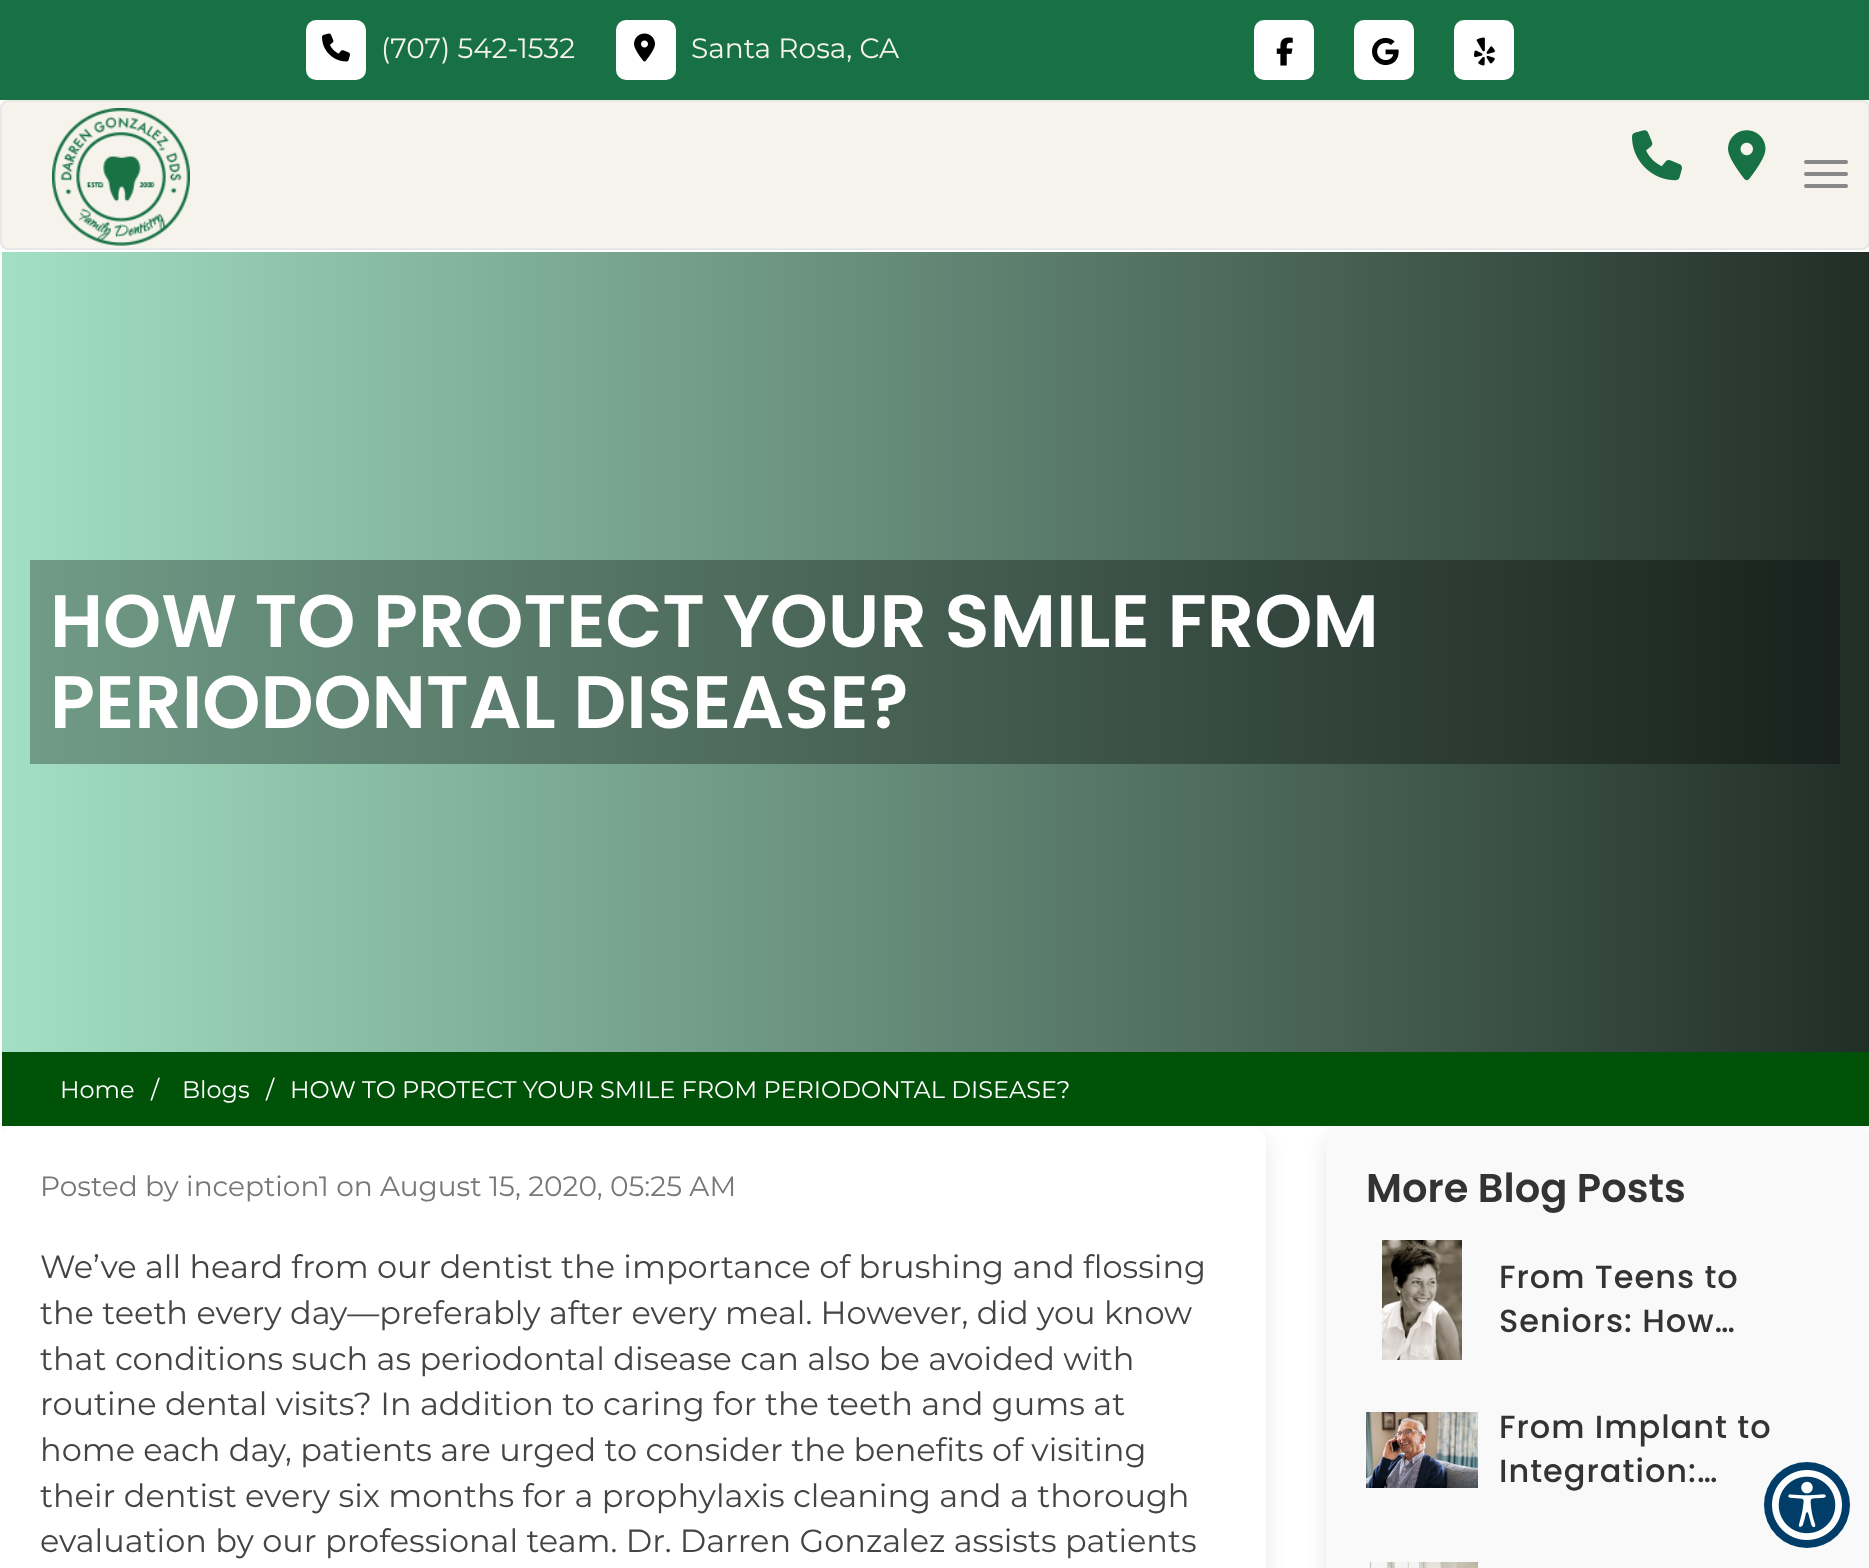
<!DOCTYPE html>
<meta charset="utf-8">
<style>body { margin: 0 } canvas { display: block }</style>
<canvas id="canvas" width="1869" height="1568"></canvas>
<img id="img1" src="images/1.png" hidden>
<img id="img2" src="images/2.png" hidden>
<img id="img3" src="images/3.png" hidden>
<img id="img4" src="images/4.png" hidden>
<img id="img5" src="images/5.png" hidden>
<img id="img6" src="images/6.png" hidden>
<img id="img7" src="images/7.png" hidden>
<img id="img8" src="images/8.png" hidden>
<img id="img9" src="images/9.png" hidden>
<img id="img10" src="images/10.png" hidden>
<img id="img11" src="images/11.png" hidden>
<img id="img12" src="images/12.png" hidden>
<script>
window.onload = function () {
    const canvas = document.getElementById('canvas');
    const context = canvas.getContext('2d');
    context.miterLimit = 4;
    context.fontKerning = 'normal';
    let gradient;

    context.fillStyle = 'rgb(255, 255, 255)';
    context.fillRect(0, 0, 1869, 1568);
    context.fillStyle = 'rgb(23, 113, 68)';
    context.fillRect(0, 0, 1869, 100);
    context.fillStyle = 'rgb(255, 255, 255)';
    context.beginPath();
    context.roundRect(306, 20, 60, 60, 10);
    context.fill();
    context.drawImage(document.getElementById('img1'), 322, 33, 28, 29);
    context.beginPath();
    context.roundRect(616, 20, 60, 60, 10);
    context.fill();
    context.drawImage(document.getElementById('img2'), 634, 33, 21, 29);
    context.beginPath();
    context.roundRect(1254, 20, 60, 60, 10);
    context.fill();
    context.drawImage(document.getElementById('img3'), 1276, 37, 17, 29);
    context.beginPath();
    context.roundRect(1354, 20, 60, 60, 10);
    context.fill();
    context.drawImage(document.getElementById('img4'), 1372, 37, 27, 29);
    context.beginPath();
    context.roundRect(1454, 20, 60, 60, 10);
    context.fill();
    context.drawImage(document.getElementById('img5'), 1474, 37, 21, 29);
    context.fillStyle = 'rgb(246, 243, 237)';
    context.beginPath();
    context.roundRect(1, 101, 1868, 148, 7);
    context.fill();
    context.strokeStyle = 'rgb(231, 231, 231)';
    context.lineWidth = 2;
    context.stroke();
    context.drawImage(document.getElementById('img6'), 52, 108, 138, 138);
    context.drawImage(document.getElementById('img7'), 1632, 130, 50, 51);
    context.drawImage(document.getElementById('img8'), 1728, 130, 38, 51);
    context.fillStyle = 'rgb(136, 136, 136)';
    context.beginPath();
    context.roundRect(1804, 160, 44, 4, 2);
    context.fill();
    context.beginPath();
    context.roundRect(1804, 172, 44, 4, 2);
    context.fill();
    context.beginPath();
    context.roundRect(1804, 184, 44, 4, 2);
    context.fill();
    context.fillStyle = 'rgba(0, 0, 0, 0.1)';
    context.filter = 'blur(10px)';
    context.beginPath();
    context.roundRect(0, 1134, 1266, 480, 16);
    context.fill();
    context.filter = 'none';
    context.fillStyle = 'rgb(255, 255, 255)';
    context.beginPath();
    context.roundRect(0, 1126, 1266, 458, 16);
    context.fill();
    context.fillRect(0, 1128, 2, 11);
    gradient = context.createLinearGradient(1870, 652, 0, 652);
    gradient.addColorStop(0, 'rgb(33, 45, 39)');
    gradient.addColorStop(1, 'rgb(163, 224, 195)');
    context.fillStyle = gradient;
    context.fillRect(2, 252, 1867, 800);
    gradient = context.createLinearGradient(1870, 652, 0, 652);
    gradient.addColorStop(0, 'rgb(23, 31, 27)');
    gradient.addColorStop(1, 'rgb(114, 157, 137)');
    context.fillStyle = gradient;
    context.fillRect(30, 560, 1810, 204);
    context.fillStyle = 'rgba(0, 0, 0, 0.1)';
    context.filter = 'blur(10px)';
    context.beginPath();
    context.roundRect(1326, 1134, 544, 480, 16);
    context.fill();
    context.filter = 'none';
    context.fillStyle = 'rgb(0, 82, 8)';
    context.fillRect(2, 1052, 1867, 74);
    context.fillStyle = 'rgb(249, 249, 249)';
    context.beginPath();
    context.roundRect(1326, 1126, 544, 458, 16);
    context.fill();
    context.drawImage(document.getElementById('img9'), 1382, 1240, 80, 120);
    context.drawImage(document.getElementById('img10'), 1366, 1412, 112, 76);
    context.drawImage(document.getElementById('img11'), 1369, 1562, 109, 6);
    context.fillStyle = 'rgb(0, 61, 104)';
    context.beginPath();
    context.arc(1807, 1505, 43, 0, 2 * Math.PI);
    context.fill();
    context.drawImage(document.getElementById('img12'), 1772, 1470, 70, 70);
    context.font = '100 28px Montserrat';
    context.fillStyle = 'rgb(246, 243, 237)';
    context.fillText('(707) 542-1532', 381, 58);
    context.fillText('Santa Rosa, CA', 691, 58);
    context.font = '600 74px Poppins';
    context.fillStyle = 'rgb(255, 255, 255)';
    context.fillText('HOW TO PROTECT YOUR SMILE FROM', 50, 647);
    context.fillText('PERIODONTAL DISEASE?', 50, 728);
    context.font = '100 24px Montserrat';
    context.fillText('Home', 60, 1098);
    context.fillText('/', 151, 1098);
    context.fillText('Blogs', 182, 1098);
    context.fillText('/', 266, 1098);
    context.fillText('HOW TO PROTECT YOUR SMILE FROM PERIODONTAL DISEASE?', 290, 1098);
    context.font = '100 28px Montserrat';
    context.fillStyle = 'rgb(119, 119, 119)';
    context.fillText('Posted by inception1 on August 15, 2020, 05:25 AM', 40, 1196);
    context.font = '100 32px Montserrat';
    context.fillStyle = 'rgb(68, 68, 68)';
    context.fillText('We’ve all heard from our dentist the importance of brushing and flossing', 40, 1278);
    context.fillText('the teeth every day—preferably after every meal. However, did you know', 40, 1324);
    context.fillText('that conditions such as periodontal disease can also be avoided with', 40, 1370);
    context.fillText('routine dental visits? In addition to caring for the teeth and gums at', 40, 1415);
    context.fillText('home each day, patients are urged to consider the benefits of visiting', 40, 1461);
    context.fillText('their dentist every six months for a prophylaxis cleaning and a thorough', 40, 1507);
    context.fillText('evaluation by our professional team. Dr. Darren Gonzalez assists patients', 40, 1552);
    context.font = '600 40px Poppins';
    context.fillStyle = 'rgb(51, 51, 51)';
    context.fillText('More Blog Posts', 1366, 1202);
    context.letterSpacing = '1px';
    context.font = '500 32px Poppins';
    context.fillText('From Teens to', 1499, 1288);
    context.fillText('Seniors: How…', 1499, 1332);
    context.fillText('From Implant to', 1499, 1438);
    context.fillText('Integration:…', 1499, 1482);
};
</script>
